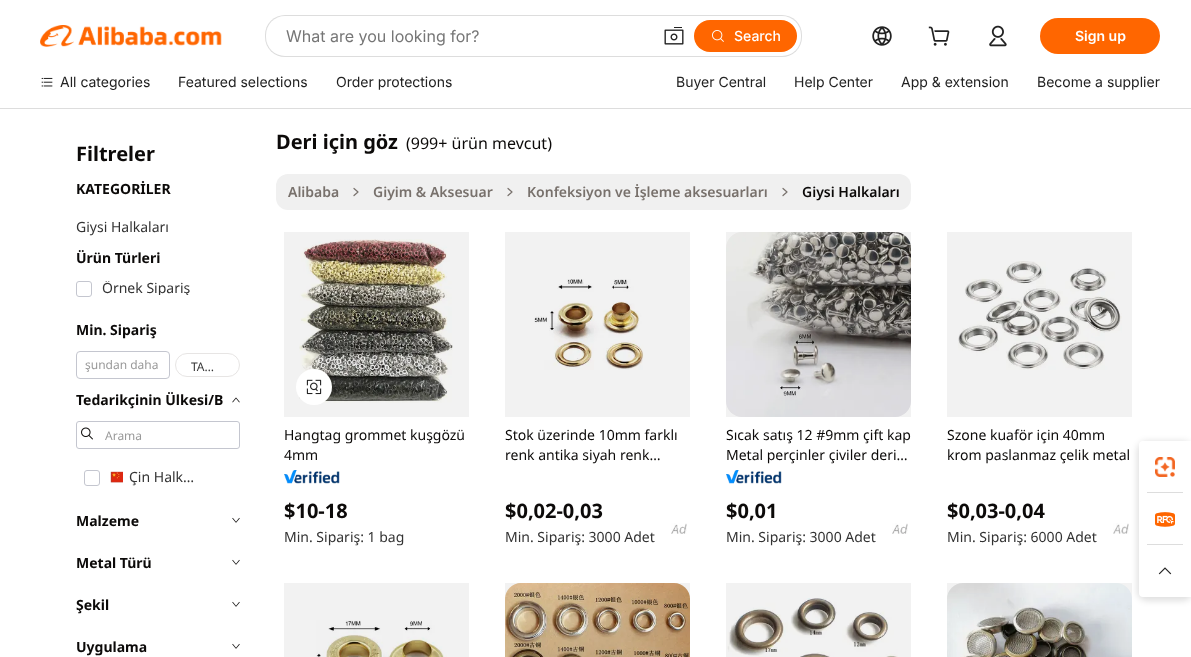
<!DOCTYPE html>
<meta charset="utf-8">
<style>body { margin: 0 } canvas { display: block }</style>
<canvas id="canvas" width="1191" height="657"></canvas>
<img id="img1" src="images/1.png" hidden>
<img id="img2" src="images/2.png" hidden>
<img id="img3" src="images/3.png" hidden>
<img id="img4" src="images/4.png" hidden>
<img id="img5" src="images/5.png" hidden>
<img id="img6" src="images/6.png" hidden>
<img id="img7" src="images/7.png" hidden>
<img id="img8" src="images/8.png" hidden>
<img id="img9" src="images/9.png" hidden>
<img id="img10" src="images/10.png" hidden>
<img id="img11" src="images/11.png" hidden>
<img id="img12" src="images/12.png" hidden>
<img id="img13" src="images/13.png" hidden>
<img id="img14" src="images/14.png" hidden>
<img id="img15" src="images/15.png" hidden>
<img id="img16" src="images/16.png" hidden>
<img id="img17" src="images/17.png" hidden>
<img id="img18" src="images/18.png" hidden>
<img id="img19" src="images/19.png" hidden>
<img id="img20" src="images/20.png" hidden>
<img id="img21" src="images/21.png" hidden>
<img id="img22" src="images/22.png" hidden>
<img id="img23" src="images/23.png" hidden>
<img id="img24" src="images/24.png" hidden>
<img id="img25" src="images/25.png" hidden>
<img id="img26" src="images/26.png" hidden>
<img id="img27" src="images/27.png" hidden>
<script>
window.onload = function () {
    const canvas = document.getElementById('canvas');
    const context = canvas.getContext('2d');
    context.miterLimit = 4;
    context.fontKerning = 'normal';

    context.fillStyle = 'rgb(255, 255, 255)';
    context.fillRect(0, 0, 1191, 657);
    context.fillStyle = 'rgb(221, 221, 221)';
    context.fillRect(0, 108, 1191, 1);
    context.drawImage(document.getElementById('img1'), 40, 25, 182, 22);
    context.beginPath();
    context.roundRect(265, 15, 537, 42, 20);
    context.fill();
    context.fillStyle = 'rgb(255, 255, 255)';
    context.beginPath();
    context.roundRect(266, 16, 535, 40, 19);
    context.fill();
    context.drawImage(document.getElementById('img2'), 664, 27, 20, 18);
    context.fillStyle = 'rgb(255, 102, 0)';
    context.beginPath();
    context.roundRect(694, 20, 103, 32, 16);
    context.fill();
    context.drawImage(document.getElementById('img3'), 712, 30, 12, 12);
    context.drawImage(document.getElementById('img4'), 872, 26, 20, 20);
    context.drawImage(document.getElementById('img5'), 928, 26, 22, 20);
    context.drawImage(document.getElementById('img6'), 989, 25, 18, 22);
    context.beginPath();
    context.roundRect(1040, 18, 120, 36, 18);
    context.fill();
    context.drawImage(document.getElementById('img7'), 41, 77, 12, 10);
    context.beginPath();
    context.roundRect(76.5, 281.5, 15, 15, 2.5);
    context.strokeStyle = 'rgb(196, 198, 207)';
    context.stroke();
    context.beginPath();
    context.roundRect(76.5, 351.5, 93, 27, 3.5);
    context.stroke();
    context.beginPath();
    context.roundRect(175.5, 353.5, 64, 23, 11.5);
    context.strokeStyle = 'rgb(231, 229, 228)';
    context.stroke();
    context.drawImage(document.getElementById('img8'), 232, 397, 8, 6);
    context.beginPath();
    context.roundRect(76.5, 421.5, 163, 27, 2.5);
    context.strokeStyle = 'rgb(196, 198, 207)';
    context.stroke();
    context.drawImage(document.getElementById('img9'), 81, 427, 12, 13);
    context.beginPath();
    context.roundRect(84.5, 470.5, 15, 15, 2.5);
    context.stroke();
    context.drawImage(document.getElementById('img10'), 110, 471, 13, 12);
    context.drawImage(document.getElementById('img11'), 232, 517, 8, 6);
    context.drawImage(document.getElementById('img11'), 232, 559, 8, 6);
    context.drawImage(document.getElementById('img11'), 232, 601, 8, 6);
    context.drawImage(document.getElementById('img11'), 232, 643, 8, 6);
    context.fillStyle = 'rgb(240, 240, 240)';
    context.beginPath();
    context.roundRect(276, 174, 635, 36, 12);
    context.fill();
    context.beginPath();
    context.moveTo(354, 195.5);
    context.lineTo(358, 192);
    context.lineTo(354, 188.5);
    context.strokeStyle = 'rgb(120, 113, 108)';
    context.lineWidth = 1.2;
    context.lineCap = 'round';
    context.lineJoin = 'round';
    context.stroke();
    context.beginPath();
    context.moveTo(508, 195.5);
    context.lineTo(512, 192);
    context.lineTo(508, 188.5);
    context.stroke();
    context.beginPath();
    context.moveTo(783, 195.5);
    context.lineTo(787, 192);
    context.lineTo(783, 188.5);
    context.stroke();
    context.drawImage(document.getElementById('img12'), 299, 239, 154, 164);
    context.fillStyle = 'rgba(0, 0, 0, 0.05)';
    context.fillRect(284, 232, 185, 185);
    context.fillStyle = 'rgb(255, 255, 255)';
    context.beginPath();
    context.arc(314, 387, 18, 0, 2 * Math.PI);
    context.fill();
    context.drawImage(document.getElementById('img13'), 306, 379, 16, 16);
    context.drawImage(document.getElementById('img14'), 284, 470, 56, 14);
    context.drawImage(document.getElementById('img15'), 534, 279, 110, 91);
    context.fillStyle = 'rgba(0, 0, 0, 0.05)';
    context.fillRect(505, 232, 185, 185);
    context.drawImage(document.getElementById('img16'), 671, 523, 16, 11);
    context.drawImage(document.getElementById('img17'), 726, 232, 185, 185);
    context.fillRect(726, 232, 185, 185);
    context.drawImage(document.getElementById('img18'), 726, 470, 56, 14);
    context.drawImage(document.getElementById('img16'), 892, 523, 16, 11);
    context.drawImage(document.getElementById('img19'), 958, 261, 164, 109);
    context.fillRect(947, 232, 185, 185);
    context.drawImage(document.getElementById('img20'), 1113, 523, 16, 11);
    context.drawImage(document.getElementById('img21'), 316, 620, 131, 37);
    context.fillRect(284, 583, 185, 74);
    context.drawImage(document.getElementById('img22'), 505, 583, 185, 74);
    context.fillRect(505, 583, 185, 74);
    context.drawImage(document.getElementById('img23'), 727, 598, 171, 59);
    context.fillRect(726, 583, 185, 74);
    context.drawImage(document.getElementById('img24'), 947, 583, 185, 74);
    context.fillRect(947, 583, 185, 74);
    context.fillStyle = 'rgba(0, 0, 0, 0.12)';
    context.filter = 'blur(3px)';
    context.beginPath();
    context.roundRect(1137, 441, 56, 160, 10);
    context.fill();
    context.filter = 'none';
    context.fillStyle = 'rgb(255, 255, 255)';
    context.beginPath();
    context.roundRect(1139, 441, 52, 156, [8, 0, 0, 8]);
    context.fill();
    context.beginPath();
    context.roundRect(1139, 441, 52, 52, 4);
    context.fill();
    context.drawImage(document.getElementById('img25'), 1155, 457, 20, 20);
    context.fillStyle = 'rgb(221, 221, 221)';
    context.fillRect(1147, 492, 36, 1);
    context.drawImage(document.getElementById('img26'), 1155, 512, 20, 15);
    context.fillRect(1147, 544, 36, 1);
    context.fillStyle = 'rgb(255, 255, 255)';
    context.beginPath();
    context.roundRect(1139, 545, 52, 52, 4);
    context.fill();
    context.drawImage(document.getElementById('img27'), 1158, 567, 14, 8);
    context.font = '16px Inter';
    context.fillStyle = 'rgb(118, 118, 118)';
    context.fillText('What are you looking for?', 286, 42);
    context.font = '500 14px Inter';
    context.fillStyle = 'rgb(255, 255, 255)';
    context.fillText('Search', 734, 41);
    context.font = '600 14px Inter';
    context.fillText('Sign up', 1075, 41);
    context.font = '14px Inter';
    context.fillStyle = 'rgb(34, 34, 34)';
    context.fillText('All categories', 60, 87);
    context.fillText('Featured selections', 178, 87);
    context.fillText('Order protections', 336, 87);
    context.fillText('Buyer Central', 676, 87);
    context.fillText('Help Center', 794, 87);
    context.fillText('App & extension', 901, 87);
    context.fillText('Become a supplier', 1037, 87);
    context.font = 'bold 20px Noto Sans';
    context.fillStyle = 'rgb(12, 10, 9)';
    context.fillText('Filtreler', 76, 161);
    context.font = 'bold 14px Noto Sans';
    context.fillText('KATEGORİLER', 76, 194);
    context.font = '14px Noto Sans';
    context.fillStyle = 'rgb(51, 51, 51)';
    context.fillText('Giysi Halkaları', 76, 232);
    context.font = 'bold 14px Noto Sans';
    context.fillStyle = 'rgb(12, 10, 9)';
    context.fillText('Ürün Türleri', 76, 263);
    context.save();
    context.beginPath();
    context.rect(102, 281, 88, 14);
    context.clip();
    context.font = '14px Noto Sans';
    context.fillStyle = 'rgb(51, 51, 51)';
    context.fillText('Örnek Sipariş', 102, 293);
    context.restore();
    context.fillText('Min. Sipariş', 76, 335);
    context.font = '12px Noto Sans';
    context.fillStyle = 'rgb(153, 153, 153)';
    context.fillText('şundan daha', 85, 369);
    context.fillStyle = 'rgb(51, 51, 51)';
    context.fillText('TA…', 191, 371);
    context.font = 'bold 14px Noto Sans';
    context.fillStyle = 'rgb(12, 10, 9)';
    context.fillText('Tedarikçinin Ülkesi/B', 76, 405);
    context.font = '12px Noto Sans';
    context.fillStyle = 'rgb(153, 153, 153)';
    context.fillText('Arama', 105, 440);
    context.font = '14px Noto Sans';
    context.fillStyle = 'rgb(51, 51, 51)';
    context.fillText('Çin Halk…', 129, 482);
    context.font = 'bold 14px Noto Sans';
    context.fillStyle = 'rgb(12, 10, 9)';
    context.fillText('Malzeme', 76, 526);
    context.fillText('Metal Türü', 76, 568);
    context.fillText('Şekil', 76, 610);
    context.fillText('Uygulama', 76, 652);
    context.font = 'bold 20px Noto Sans';
    context.fillText('Deri için göz', 276, 149);
    context.font = '16px Noto Sans';
    context.fillText('(999+ ürün mevcut)', 406, 149);
    context.font = '600 14px Noto Sans';
    context.fillStyle = 'rgb(120, 113, 108)';
    context.fillText('Alibaba', 288, 197);
    context.fillText('Giyim & Aksesuar', 373, 197);
    context.fillText('Konfeksiyon ve İşleme aksesuarları', 527, 197);
    context.fillStyle = 'rgb(12, 10, 9)';
    context.fillText('Giysi Halkaları', 802, 197);
    context.font = '14px Noto Sans';
    context.fillText('Hangtag grommet kuşgözü', 284, 440);
    context.fillText('4mm', 284, 460);
    context.font = 'bold 20px Noto Sans';
    context.fillText('$10-18', 284, 518);
    context.font = '14px Noto Sans';
    context.fillStyle = 'rgb(51, 51, 51)';
    context.fillText('Min. Sipariş: 1 bag', 284, 542);
    context.fillStyle = 'rgb(12, 10, 9)';
    context.fillText('Stok üzerinde 10mm farklı', 505, 440);
    context.fillText('renk antika siyah renk…', 505, 460);
    context.font = 'bold 20px Noto Sans';
    context.fillText('$0,02-0,03', 505, 518);
    context.font = '14px Noto Sans';
    context.fillStyle = 'rgb(51, 51, 51)';
    context.fillText('Min. Sipariş: 3000 Adet', 505, 542);
    context.fillStyle = 'rgb(12, 10, 9)';
    context.fillText('Sıcak satış 12 #9mm çift kap', 726, 440);
    context.fillText('Metal perçinler çiviler deri…', 726, 460);
    context.font = 'bold 20px Noto Sans';
    context.fillText('$0,01', 726, 518);
    context.font = '14px Noto Sans';
    context.fillStyle = 'rgb(51, 51, 51)';
    context.fillText('Min. Sipariş: 3000 Adet', 726, 542);
    context.fillStyle = 'rgb(12, 10, 9)';
    context.fillText('Szone kuaför için 40mm', 947, 440);
    context.fillText('krom paslanmaz çelik metal', 947, 460);
    context.font = 'bold 20px Noto Sans';
    context.fillText('$0,03-0,04', 947, 518);
    context.font = '14px Noto Sans';
    context.fillStyle = 'rgb(51, 51, 51)';
    context.fillText('Min. Sipariş: 6000 Adet', 947, 542);
};
</script>
